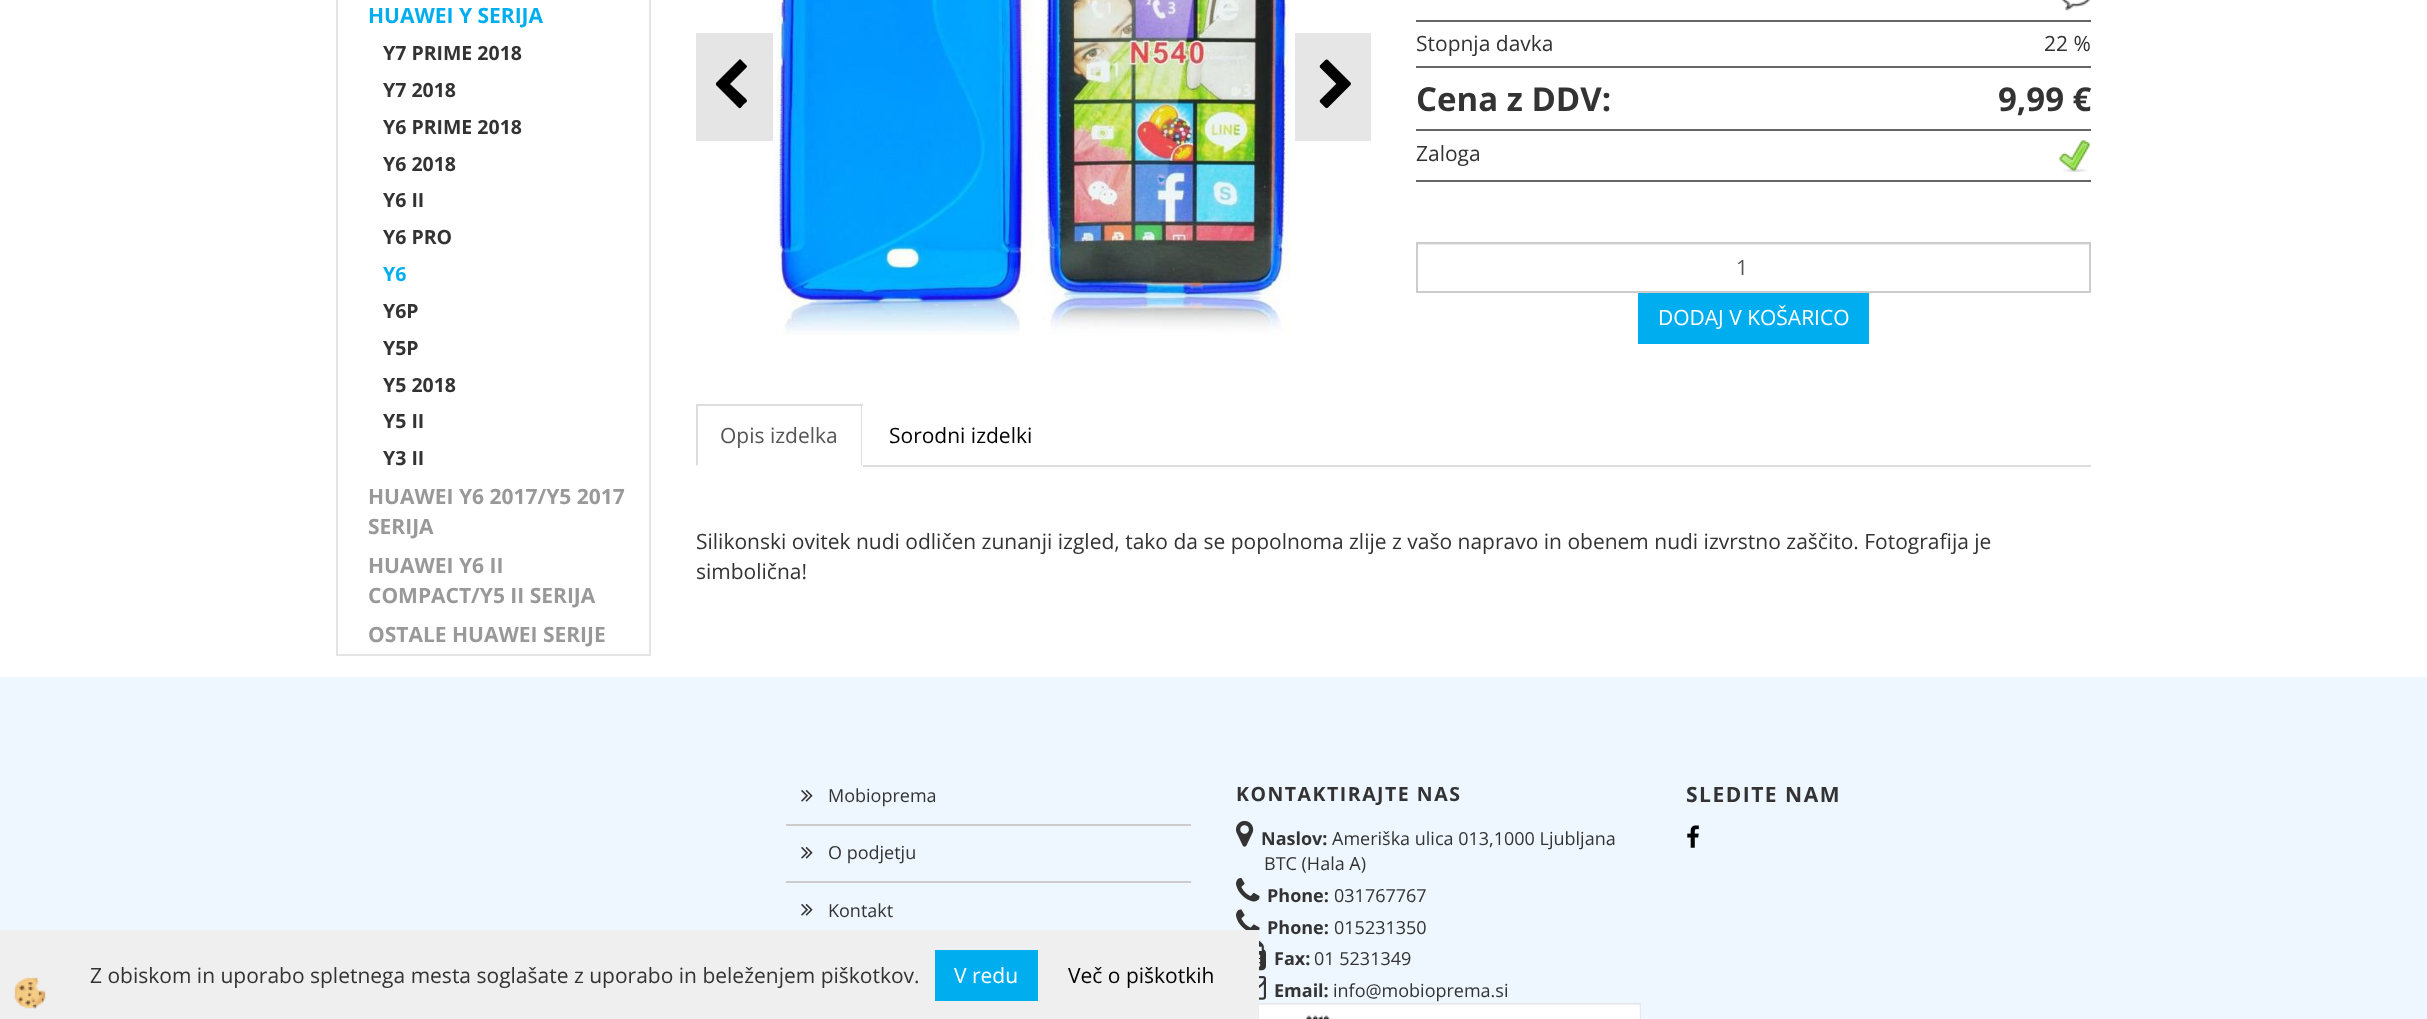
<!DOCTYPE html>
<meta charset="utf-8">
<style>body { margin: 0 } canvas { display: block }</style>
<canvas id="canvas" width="2427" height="1019"></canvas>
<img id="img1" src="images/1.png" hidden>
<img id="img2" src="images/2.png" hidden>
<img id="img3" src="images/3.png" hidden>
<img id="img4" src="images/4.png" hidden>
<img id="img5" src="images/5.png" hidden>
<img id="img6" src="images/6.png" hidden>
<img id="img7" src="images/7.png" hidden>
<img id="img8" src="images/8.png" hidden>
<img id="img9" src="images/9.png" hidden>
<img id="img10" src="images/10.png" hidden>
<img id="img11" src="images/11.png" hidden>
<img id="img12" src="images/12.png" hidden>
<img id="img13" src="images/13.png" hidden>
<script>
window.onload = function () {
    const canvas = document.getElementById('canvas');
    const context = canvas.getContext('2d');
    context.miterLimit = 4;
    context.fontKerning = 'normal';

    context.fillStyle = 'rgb(255, 255, 255)';
    context.fillRect(0, 0, 2427, 1019);
    context.strokeStyle = 'rgb(228, 228, 228)';
    context.lineWidth = 2;
    context.strokeRect(337, -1, 313, 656);
    context.drawImage(document.getElementById('img1'), 772, 0, 519, 335);
    context.fillStyle = 'rgb(229, 229, 229)';
    context.fillRect(696, 33, 77, 108);
    context.fillStyle = 'rgb(0, 0, 0)';
    context.beginPath();
    context.moveTo(746, 68);
    context.lineTo(730, 84);
    context.lineTo(744, 97);
    context.bezierCurveTo(748, 101, 748, 101, 744, 104);
    context.bezierCurveTo(739, 110, 740, 109, 735, 104);
    context.lineTo(716, 85);
    context.lineTo(716, 83);
    context.lineTo(739, 60);
    context.bezierCurveTo(740, 58, 742, 61, 743, 62);
    context.lineTo(747, 66);
    context.bezierCurveTo(747, 66, 747, 67, 746, 68);
    context.closePath();
    context.fill();
    context.fillStyle = 'rgb(230, 230, 230)';
    context.fillRect(1295, 33, 76, 108);
    context.drawImage(document.getElementById('img2'), 1319, 59, 32, 50);
    context.fillStyle = 'rgb(102, 102, 102)';
    context.fillRect(1416, 20, 675, 2);
    context.drawImage(document.getElementById('img3'), 2062, 0, 28, 11);
    context.fillRect(1416, 66, 675, 2);
    context.fillRect(1416, 129, 675, 2);
    context.fillRect(1416, 180, 675, 2);
    context.drawImage(document.getElementById('img4'), 2059, 140, 31, 32);
    context.fillStyle = 'rgb(236, 236, 236)';
    context.fillRect(1418, 244, 672, 1);
    context.strokeStyle = 'rgb(204, 204, 204)';
    context.strokeRect(1417, 243, 673, 49);
    context.fillStyle = 'rgb(0, 174, 239)';
    context.fillRect(1638, 293, 231, 51);
    context.fillStyle = 'rgb(221, 221, 221)';
    context.fillRect(863, 465, 1228, 2);
    context.fillRect(696, 404, 167, 2);
    context.beginPath();
    context.moveTo(862, 404);
    context.lineTo(862, 466);
    context.lineTo(861, 465);
    context.lineTo(861, 405);
    context.closePath();
    context.fill();
    context.beginPath();
    context.moveTo(696, 466);
    context.lineTo(696, 404);
    context.lineTo(698, 405);
    context.lineTo(698, 465);
    context.closePath();
    context.fill();
    context.fillStyle = 'rgb(238, 247, 255)';
    context.fillRect(0, 677, 2427, 342);
    context.fillStyle = 'rgb(204, 204, 204)';
    context.fillRect(786, 824, 405, 2);
    context.drawImage(document.getElementById('img5'), 801, 790, 12, 12);
    context.fillRect(786, 881, 405, 2);
    context.drawImage(document.getElementById('img5'), 801, 847, 12, 12);
    context.drawImage(document.getElementById('img5'), 801, 904, 12, 12);
    context.drawImage(document.getElementById('img6'), 1236, 820, 18, 27);
    context.drawImage(document.getElementById('img7'), 1236, 878, 24, 24);
    context.drawImage(document.getElementById('img8'), 1236, 909, 24, 22);
    context.drawImage(document.getElementById('img9'), 1259, 940, 7, 31);
    context.drawImage(document.getElementById('img10'), 1259, 976, 7, 24);
    context.drawImage(document.getElementById('img11'), 1259, 1003, 382, 16);
    context.drawImage(document.getElementById('img12'), 1687, 825, 12, 23);
    context.fillStyle = 'rgb(239, 239, 239)';
    context.fillRect(0, 930, 1259, 89);
    context.drawImage(document.getElementById('img13'), 14, 977, 32, 32);
    context.fillStyle = 'rgb(0, 174, 239)';
    context.fillRect(935, 950, 103, 51);
    context.font = 'bold 21px Open Sans';
    context.fillText('HUAWEI Y SERIJA', 368, 23);
    context.font = 'bold 19.5px Open Sans';
    context.fillStyle = 'rgb(51, 51, 51)';
    context.fillText('Y7 PRIME 2018', 383, 60);
    context.fillText('Y7 2018', 383, 97);
    context.fillText('Y6 PRIME 2018', 383, 134);
    context.fillText('Y6 2018', 383, 171);
    context.fillText('Y6 II', 383, 207);
    context.fillText('Y6 PRO', 383, 244);
    context.fillStyle = 'rgb(0, 174, 239)';
    context.fillText('Y6', 383, 281);
    context.fillStyle = 'rgb(51, 51, 51)';
    context.fillText('Y6P', 383, 318);
    context.fillText('Y5P', 383, 355);
    context.fillText('Y5 2018', 383, 392);
    context.fillText('Y5 II', 383, 428);
    context.fillText('Y3 II', 383, 465);
    context.font = 'bold 21px Open Sans';
    context.fillStyle = 'rgb(153, 153, 153)';
    context.fillText('HUAWEI Y6 2017/Y5 2017', 368, 504);
    context.fillText('SERIJA', 368, 534);
    context.fillText('HUAWEI Y6 II', 368, 573);
    context.fillText('COMPACT/Y5 II SERIJA', 368, 603);
    context.fillText('OSTALE HUAWEI SERIJE', 368, 642);
    context.font = '21px Open Sans';
    context.fillStyle = 'rgb(51, 51, 51)';
    context.fillText('Stopnja davka', 1416, 51);
    context.fillText('22 %', 2044, 51);
    context.font = 'bold 33px Open Sans';
    context.fillText('Cena z DDV:', 1416, 111);
    context.fillText('9,99 €', 1998, 111);
    context.font = '21px Open Sans';
    context.fillText('Zaloga', 1416, 161);
    context.fillStyle = 'rgb(85, 85, 85)';
    context.fillText('1', 1736, 275);
    context.fillStyle = 'rgb(255, 255, 255)';
    context.fillText('DODAJ V KOŠARICO', 1658, 325);
    context.fillStyle = 'rgb(85, 85, 85)';
    context.fillText('Opis izdelka', 720, 443);
    context.fillStyle = 'rgb(0, 0, 0)';
    context.fillText('Sorodni izdelki', 889, 443);
    context.fillStyle = 'rgb(51, 51, 51)';
    context.fillText('Silikonski ovitek nudi odličen zunanji izgled, tako da se popolnoma zlije z vašo napravo in obenem nudi izvrstno zaščito. Fotografija je', 696, 549);
    context.fillText('simbolična!', 696, 579);
    context.font = '18px Open Sans';
    context.fillText('Mobioprema', 828, 802);
    context.fillText('O podjetju', 828, 859);
    context.fillText('Kontakt', 828, 917);
    context.letterSpacing = '1.5px';
    context.font = 'bold 19.5px Open Sans';
    context.fillText('KONTAKTIRAJTE NAS', 1236, 801);
    context.letterSpacing = '0px';
    context.font = 'bold 18px Open Sans';
    context.fillText('Naslov:', 1261, 845);
    context.font = '18px Open Sans';
    context.fillText('Ameriška ulica 013,1000 Ljubljana', 1332, 845);
    context.fillText('BTC (Hala A)', 1264, 870);
    context.font = 'bold 18px Open Sans';
    context.fillText('Phone:', 1267, 902);
    context.font = '18px Open Sans';
    context.fillText('031767767', 1334, 902);
    context.font = 'bold 18px Open Sans';
    context.fillText('Phone:', 1267, 934);
    context.font = '18px Open Sans';
    context.fillText('015231350', 1334, 934);
    context.font = 'bold 18px Open Sans';
    context.fillText('Fax:', 1274, 965);
    context.font = '18px Open Sans';
    context.fillText('01 5231349', 1314, 965);
    context.font = 'bold 18px Open Sans';
    context.fillText('Email:', 1274, 997);
    context.font = '18px Open Sans';
    context.fillText('info@mobioprema.si', 1333, 997);
    context.letterSpacing = '1.5px';
    context.font = 'bold 21px Open Sans';
    context.fillText('SLEDITE NAM', 1686, 802);
    context.letterSpacing = '0px';
    context.font = '21px Open Sans';
    context.fillText('Z obiskom in uporabo spletnega mesta soglašate z uporabo in beleženjem piškotkov.', 90, 983);
    context.fillStyle = 'rgb(255, 255, 255)';
    context.fillText('V redu', 954, 983);
    context.fillStyle = 'rgb(0, 0, 0)';
    context.fillText('Več o piškotkih', 1068, 983);
};
</script>
